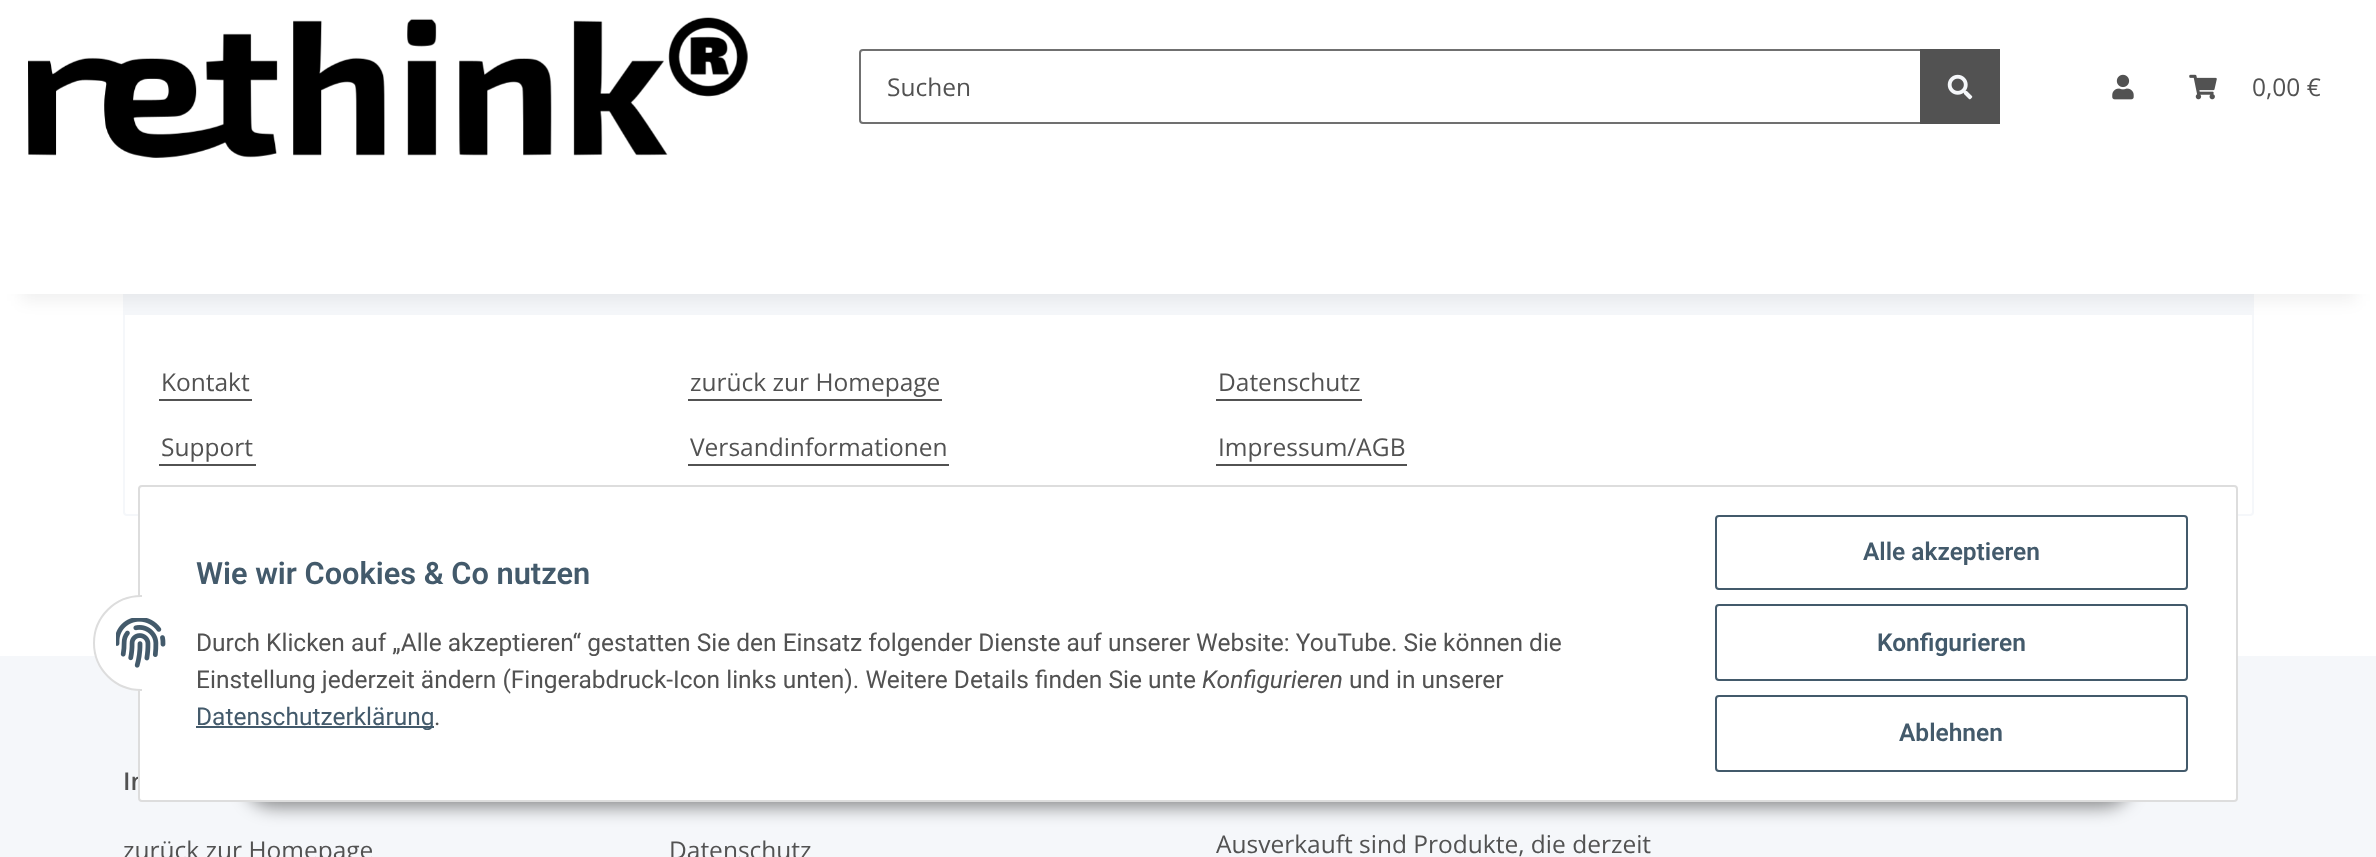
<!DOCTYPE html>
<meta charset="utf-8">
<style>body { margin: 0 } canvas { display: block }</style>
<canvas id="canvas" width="2376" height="857"></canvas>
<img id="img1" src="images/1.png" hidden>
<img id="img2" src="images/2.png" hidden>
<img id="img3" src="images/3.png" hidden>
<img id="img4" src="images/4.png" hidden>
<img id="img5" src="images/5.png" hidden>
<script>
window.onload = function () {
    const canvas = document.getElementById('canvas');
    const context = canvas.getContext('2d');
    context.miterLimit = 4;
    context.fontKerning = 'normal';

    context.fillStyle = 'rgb(245, 247, 250)';
    context.fillRect(0, 0, 2376, 857);
    context.fillStyle = 'rgb(255, 255, 255)';
    context.fillRect(0, 294, 2376, 362);
    context.beginPath();
    context.roundRect(124, 236, 2129, 279, 3);
    context.strokeStyle = 'rgb(245, 247, 250)';
    context.lineWidth = 2;
    context.stroke();
    context.fillStyle = 'rgb(245, 247, 250)';
    context.fillRect(125, 294, 2127, 21);
    context.fillStyle = 'rgba(0, 0, 0, 0.06)';
    context.filter = 'blur(8px)';
    context.beginPath();
    context.rect(21, 49, 2335, 252);
    context.fill();
    context.filter = 'none';
    context.fillStyle = 'rgb(255, 255, 255)';
    context.fillRect(0, 0, 2376, 294);
    context.drawImage(document.getElementById('img1'), 28, 17, 720, 141);
    context.beginPath();
    context.roundRect(860, 50, 1061, 73, [3, 0, 0, 3]);
    context.strokeStyle = 'rgb(112, 112, 112)';
    context.stroke();
    context.fillStyle = 'rgb(82, 82, 82)';
    context.fillRect(1920, 49, 80, 75);
    context.drawImage(document.getElementById('img2'), 1947, 74, 26, 26);
    context.drawImage(document.getElementById('img3'), 2112, 74, 22, 26);
    context.drawImage(document.getElementById('img4'), 2189, 74, 28, 26);
    context.fillRect(159, 399, 93, 2);
    context.fillRect(159, 464, 97, 2);
    context.fillRect(688, 399, 254, 2);
    context.fillRect(688, 464, 261, 2);
    context.fillRect(1216, 399, 146, 2);
    context.fillRect(1216, 464, 191, 2);
    context.fillStyle = 'rgba(0, 0, 0, 0.45)';
    context.filter = 'blur(9px)';
    context.beginPath();
    context.roundRect(245, 751, 1887, 56, 28);
    context.fill();
    context.filter = 'none';
    context.font = '24.5px Open Sans';
    context.fillStyle = 'rgb(82, 82, 82)';
    context.fillText('Suchen', 887, 96);
    context.fillText('0,00 €', 2252, 96);
    context.fillText('Kontakt', 161, 391);
    context.fillText('Support', 161, 456);
    context.fillText('zurück zur Homepage', 690, 391);
    context.fillText('Versandinformationen', 690, 456);
    context.fillText('Datenschutz', 1218, 391);
    context.fillText('Impressum/AGB', 1218, 456);
    context.font = '600 24.5px Open Sans';
    context.fillText('In', 123, 790);
    context.fillStyle = 'rgb(255, 255, 255)';
    context.beginPath();
    context.roundRect(139, 486, 2098, 315, 3);
    context.fill();
    context.strokeStyle = 'rgb(221, 221, 221)';
    context.stroke();
    context.beginPath();
    context.arc(141, 643, 47, 0, 2 * Math.PI);
    context.fill();
    context.stroke();
    context.fillRect(142, 595, 47, 96);
    context.drawImage(document.getElementById('img5'), 116, 618, 50, 50);
    context.beginPath();
    context.roundRect(1716, 696, 471, 75, 3);
    context.strokeStyle = 'rgb(67, 90, 107)';
    context.stroke();
    context.font = '600 24.5px Roboto';
    context.fillStyle = 'rgb(67, 90, 107)';
    context.fillText('Ablehnen', 1899, 741);
    context.beginPath();
    context.roundRect(1716, 605, 471, 75, 3);
    context.stroke();
    context.fillText('Konfigurieren', 1877, 651);
    context.beginPath();
    context.roundRect(1716, 516, 471, 73, 3);
    context.stroke();
    context.fillText('Alle akzeptieren', 1863, 560);
    context.font = '24.5px Roboto';
    context.fillStyle = 'rgb(82, 82, 82)';
    context.fillText('.', 434, 725);
    context.fillStyle = 'rgb(67, 90, 107)';
    context.fillRect(196, 726, 238, 2);
    context.fillText('Datenschutzerklärung', 196, 725);
    context.fillStyle = 'rgb(82, 82, 82)';
    context.fillText('und in unserer', 1349, 688);
    context.font = 'italic 24.5px Roboto';
    context.fillText('Konfigurieren', 1202, 688);
    context.font = '24.5px Roboto';
    context.fillText('Einstellung jederzeit ändern (Fingerabdruck-Icon links unten). Weitere Details finden Sie unte', 196, 688);
    context.fillText('Durch Klicken auf „Alle akzeptieren“ gestatten Sie den Einsatz folgender Dienste auf unserer Website: YouTube. Sie können die', 196, 651);
    context.font = '600 30.75px Roboto';
    context.fillStyle = 'rgb(67, 90, 107)';
    context.fillText('Wie wir Cookies & Co nutzen', 196, 584);
    context.font = '24.5px Open Sans';
    context.fillStyle = 'rgb(82, 82, 82)';
    context.fillText('zurück zur Homepage', 123, 859);
    context.fillText('Datenschutz', 669, 859);
    context.fillText('Ausverkauft sind Produkte, die derzeit', 1216, 853);
};
</script>
